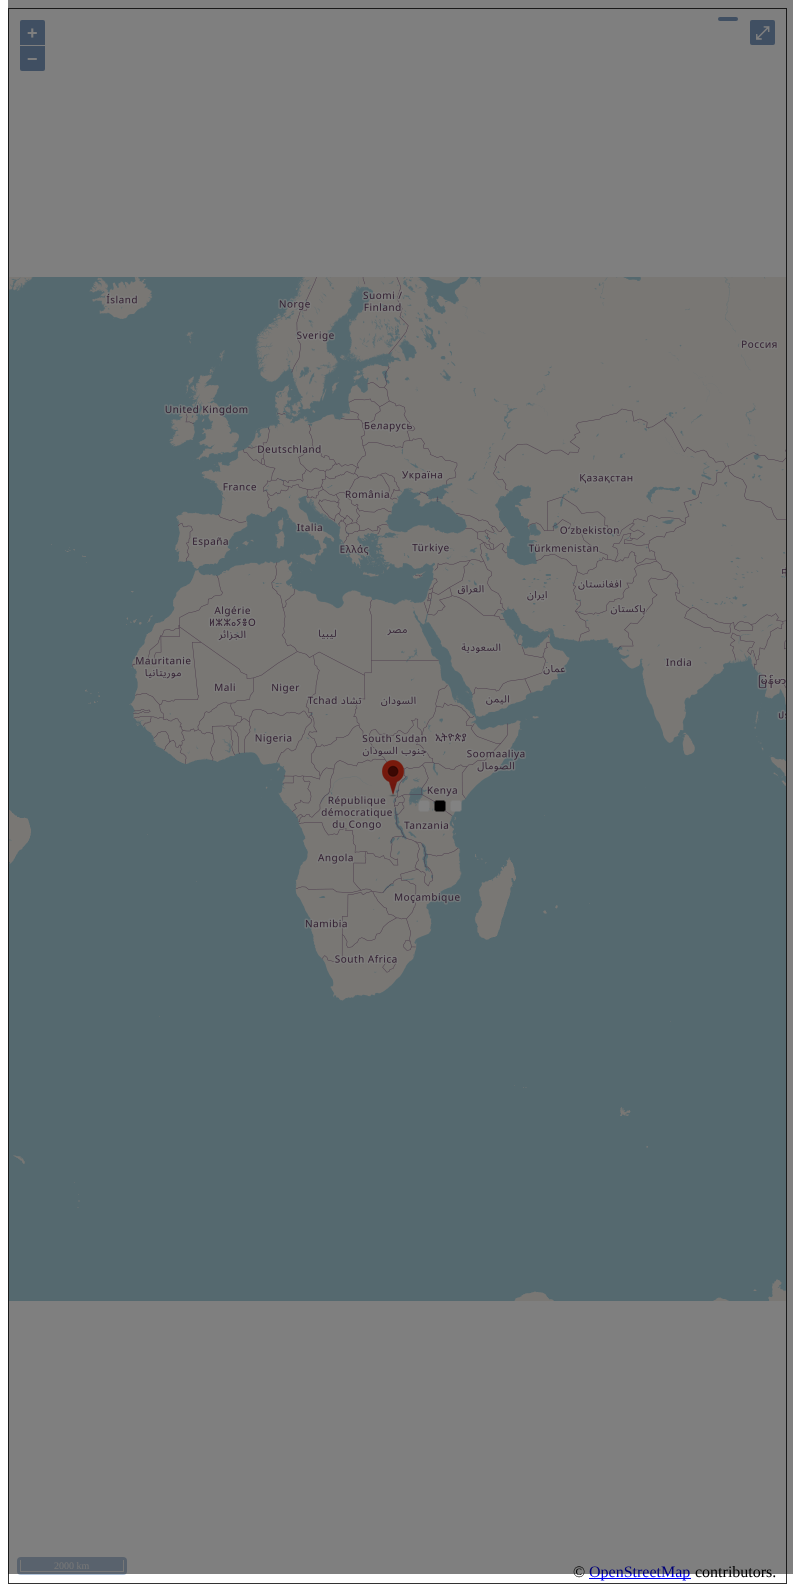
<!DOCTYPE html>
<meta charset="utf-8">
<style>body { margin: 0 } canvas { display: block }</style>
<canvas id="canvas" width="793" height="1590"></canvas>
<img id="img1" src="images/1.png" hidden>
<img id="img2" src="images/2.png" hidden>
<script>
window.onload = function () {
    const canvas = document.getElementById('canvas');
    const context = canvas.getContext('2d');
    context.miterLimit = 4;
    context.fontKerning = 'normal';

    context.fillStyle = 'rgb(255, 255, 255)';
    context.fillRect(0, 0, 793, 1590);
    context.strokeStyle = 'rgb(51, 51, 51)';
    context.strokeRect(8.5, 8.5, 778, 1575);
    context.fillStyle = 'rgb(128, 158, 196)';
    context.beginPath();
    context.roundRect(718, 17, 20, 4, 2);
    context.fill();
    context.beginPath();
    context.roundRect(20, 20, 25, 25, [2, 2, 0, 0]);
    context.fill();
    context.beginPath();
    context.roundRect(20, 46, 25, 25, [0, 0, 2, 2]);
    context.fill();
    context.beginPath();
    context.roundRect(750, 20, 25, 25, 2);
    context.fill();
    context.fillStyle = 'rgb(179, 197, 219)';
    context.beginPath();
    context.roundRect(17, 1557, 110, 18, 4);
    context.fill();
    context.fillStyle = 'rgb(238, 238, 238)';
    context.fillRect(123, 1560, 1, 12);
    context.fillRect(20, 1571, 104, 1);
    context.fillRect(20, 1560, 1, 12);
    context.fillStyle = 'rgb(0, 0, 238)';
    context.fillRect(589, 1578, 102, 1);
    context.drawImage(document.getElementById('img1'), 9, 277, 777, 1024);
    context.font = 'bold 18px Liberation Sans';
    context.fillStyle = 'rgb(255, 255, 255)';
    context.fillText('+', 27, 39);
    context.fillText('−', 27, 65);
    context.font = 'bold 18px FreeSerif';
    context.fillText('⤢', 755, 39);
    context.font = '10px Liberation Serif';
    context.fillStyle = 'rgb(238, 238, 238)';
    context.fillText('2000 km', 54, 1569);
    context.font = '16px Liberation Serif';
    context.fillStyle = 'rgb(0, 0, 0)';
    context.fillText('©', 573, 1577);
    context.fillStyle = 'rgb(0, 0, 238)';
    context.fillText('OpenStreetMap', 589, 1577);
    context.fillStyle = 'rgb(0, 0, 0)';
    context.fillText('contributors.', 695, 1577);
    context.fillStyle = 'rgba(0, 0, 0, 0.5)';
    context.fillRect(8, 0, 785, 1574);
    context.drawImage(document.getElementById('img2'), 418, 800, 44, 12);
};
</script>
